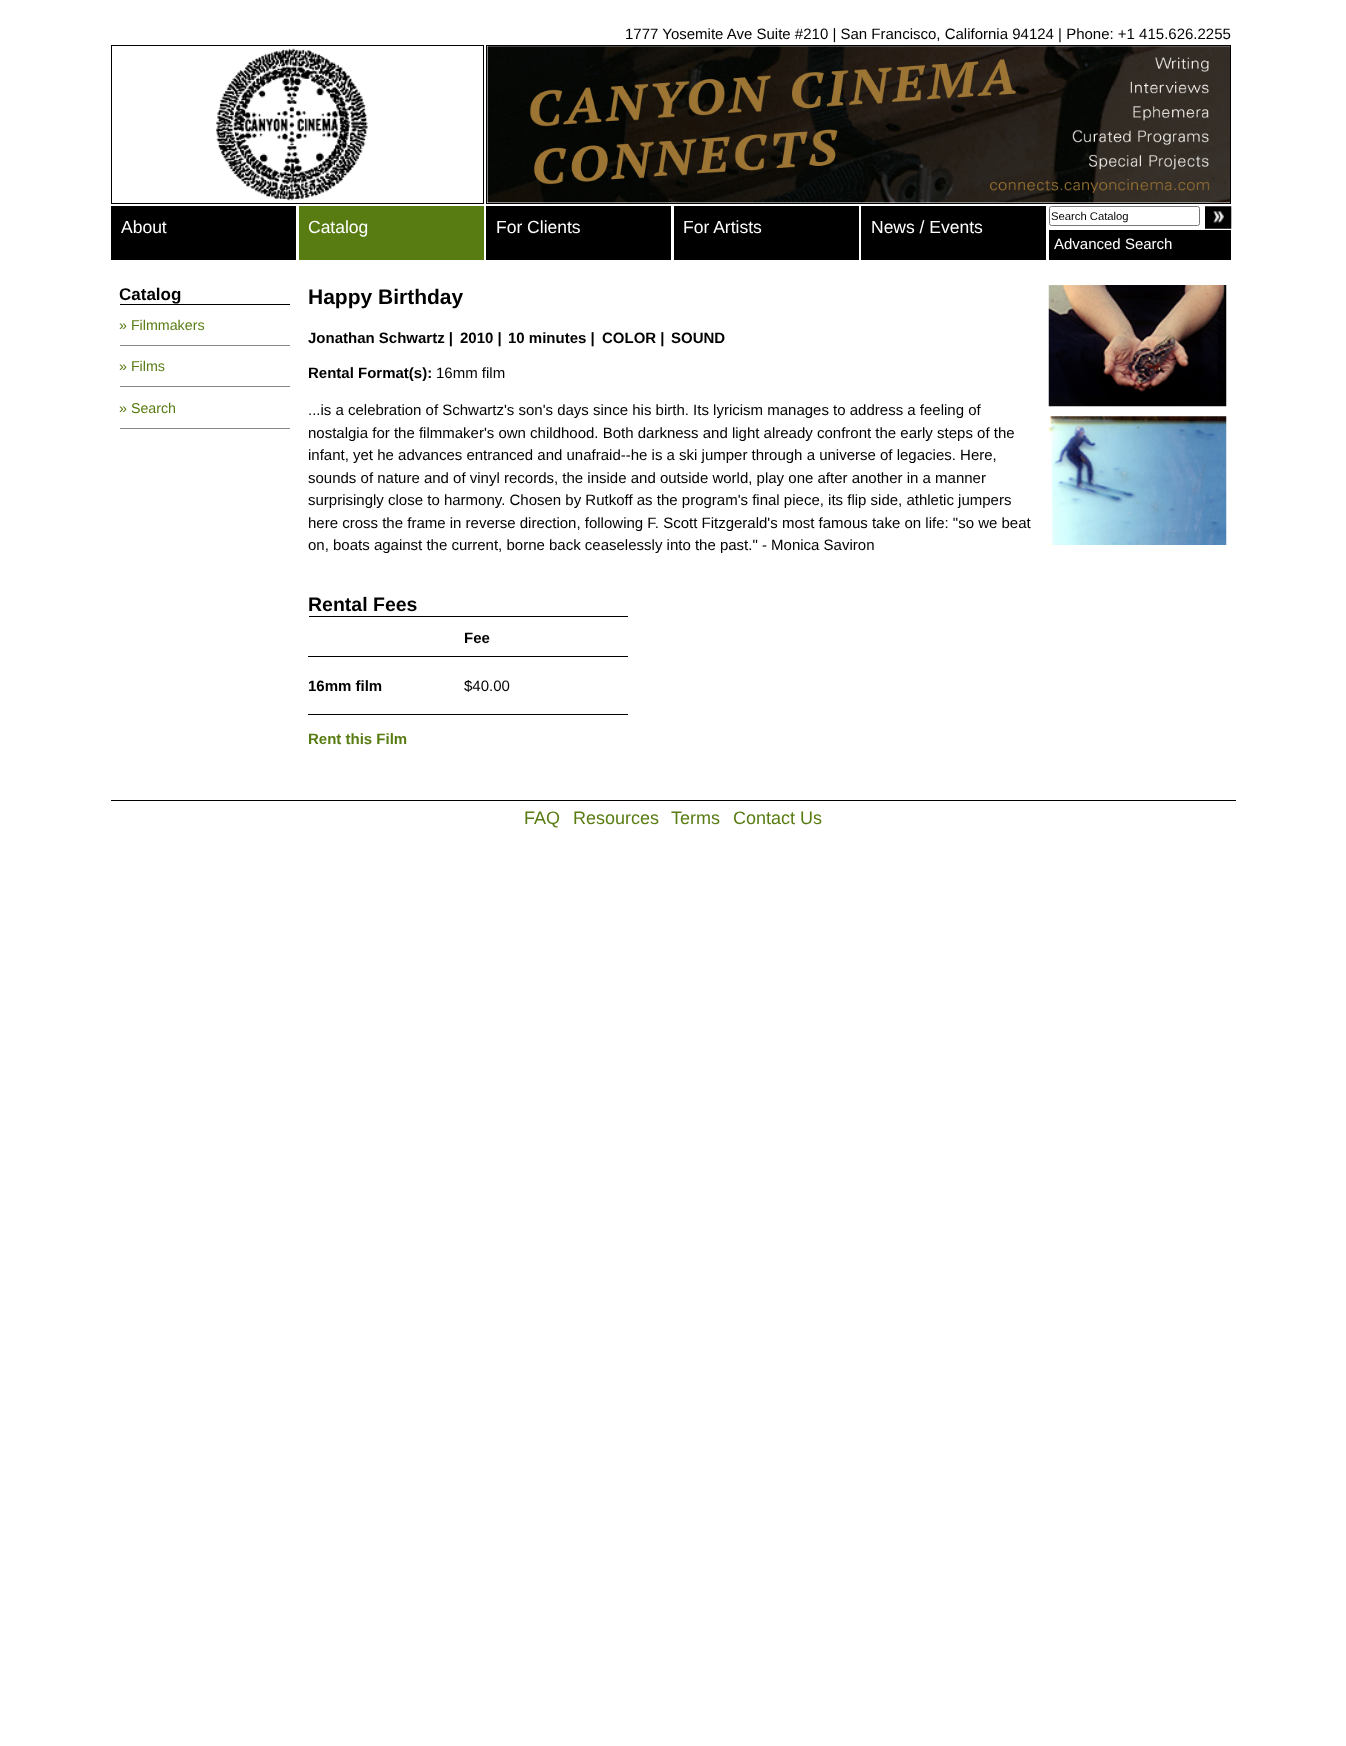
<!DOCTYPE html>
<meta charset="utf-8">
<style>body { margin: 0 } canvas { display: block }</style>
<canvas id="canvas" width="1346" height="1746"></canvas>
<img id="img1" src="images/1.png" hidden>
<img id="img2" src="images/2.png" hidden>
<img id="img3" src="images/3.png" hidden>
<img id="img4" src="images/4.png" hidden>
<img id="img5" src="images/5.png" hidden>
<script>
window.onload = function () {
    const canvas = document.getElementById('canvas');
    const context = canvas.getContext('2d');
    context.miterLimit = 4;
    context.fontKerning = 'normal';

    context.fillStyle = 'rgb(255, 255, 255)';
    context.fillRect(0, 0, 1346, 1746);
    context.strokeStyle = 'rgb(0, 0, 0)';
    context.strokeRect(111.5, 45.5, 372, 158);
    context.drawImage(document.getElementById('img1'), 216, 48, 152, 153);
    context.strokeRect(486.5, 45.5, 744, 158);
    context.drawImage(document.getElementById('img2'), 487, 46, 743, 157);
    context.fillStyle = 'rgb(0, 0, 0)';
    context.fillRect(111, 206, 185, 54);
    context.fillStyle = 'rgb(88, 124, 18)';
    context.fillRect(299, 206, 185, 54);
    context.fillStyle = 'rgb(0, 0, 0)';
    context.fillRect(486, 206, 185, 54);
    context.fillRect(674, 206, 185, 54);
    context.fillRect(861, 206, 185, 54);
    context.beginPath();
    context.roundRect(1049.5, 206.5, 150, 19, 2);
    context.strokeStyle = 'rgb(118, 118, 118)';
    context.stroke();
    context.drawImage(document.getElementById('img3'), 1205, 206, 27, 23);
    context.fillRect(1049, 230, 182, 30);
    context.fillRect(120, 304, 170, 1);
    context.fillStyle = 'rgb(136, 136, 136)';
    context.fillRect(120, 345, 170, 1);
    context.fillRect(120, 386, 170, 1);
    context.fillRect(120, 428, 170, 1);
    context.fillStyle = 'rgb(0, 0, 0)';
    context.fillRect(309, 616, 319, 1);
    context.fillRect(308, 656, 320, 1);
    context.fillRect(308, 714, 320, 1);
    context.drawImage(document.getElementById('img4'), 1048, 285, 179, 122);
    context.drawImage(document.getElementById('img5'), 1048, 416, 179, 129);
    context.fillRect(111, 800, 1125, 1);
    context.font = '15px Liberation Sans';
    context.fillText('1777 Yosemite Ave Suite #210 | San Francisco, California 94124 | Phone: +1 415.626.2255', 625, 39);
    context.font = '17.5px Liberation Sans';
    context.fillStyle = 'rgb(255, 255, 255)';
    context.fillText('About', 121, 233);
    context.fillText('Catalog', 308, 233);
    context.fillText('For Clients', 496, 233);
    context.fillText('For Artists', 683, 233);
    context.fillText('News / Events', 871, 233);
    context.font = '11.25px Liberation Sans';
    context.fillStyle = 'rgb(0, 0, 0)';
    context.fillText('Search Catalog', 1051, 220);
    context.font = '15px Liberation Sans';
    context.fillStyle = 'rgb(255, 255, 255)';
    context.fillText('Advanced Search', 1054, 249);
    context.font = 'bold 17px Liberation Sans';
    context.fillStyle = 'rgb(0, 0, 0)';
    context.fillText('Catalog', 119, 300);
    context.font = '14.25px Liberation Sans';
    context.fillStyle = 'rgb(88, 124, 18)';
    context.fillText('» Filmmakers', 119, 330);
    context.fillText('» Films', 119, 371);
    context.fillText('» Search', 119, 413);
    context.font = 'bold 21px Liberation Sans';
    context.fillStyle = 'rgb(0, 0, 0)';
    context.fillText('Happy Birthday', 308, 304);
    context.font = 'bold 15px Liberation Sans';
    context.fillText('Jonathan Schwartz |', 308, 343);
    context.fillText('2010 |', 460, 343);
    context.fillText('10 minutes |', 508, 343);
    context.fillText('COLOR |', 602, 343);
    context.fillText('SOUND', 671, 343);
    context.fillText('Rental Format(s):', 308, 378);
    context.font = '15px Liberation Sans';
    context.fillText('16mm film', 436, 378);
    context.fillText('...is a celebration of Schwartz\'s son\'s days since his birth. Its lyricism manages to address a feeling of', 308, 415);
    context.fillText('nostalgia for the filmmaker\'s own childhood. Both darkness and light already confront the early steps of the', 308, 438);
    context.fillText('infant, yet he advances entranced and unafraid--he is a ski jumper through a universe of legacies. Here,', 308, 460);
    context.fillText('sounds of nature and of vinyl records, the inside and outside world, play one after another in a manner', 308, 483);
    context.fillText('surprisingly close to harmony. Chosen by Rutkoff as the program\'s final piece, its flip side, athletic jumpers', 308, 505);
    context.fillText('here cross the frame in reverse direction, following F. Scott Fitzgerald\'s most famous take on life: "so we beat', 308, 528);
    context.fillText('on, boats against the current, borne back ceaselessly into the past." - Monica Saviron', 308, 550);
    context.font = 'bold 19.5px Liberation Sans';
    context.fillText('Rental Fees', 308, 611);
    context.font = 'bold 15px Liberation Sans';
    context.fillText('Fee', 464, 643);
    context.fillText('16mm film', 308, 691);
    context.font = '15px Liberation Sans';
    context.fillText('$40.00', 464, 691);
    context.font = 'bold 15px Liberation Sans';
    context.fillStyle = 'rgb(88, 124, 18)';
    context.fillText('Rent this Film', 308, 744);
    context.font = '18px Liberation Sans';
    context.fillText('FAQ', 524, 824);
    context.fillText('Resources', 573, 824);
    context.fillText('Terms', 671, 824);
    context.fillText('Contact Us', 733, 824);
};
</script>
